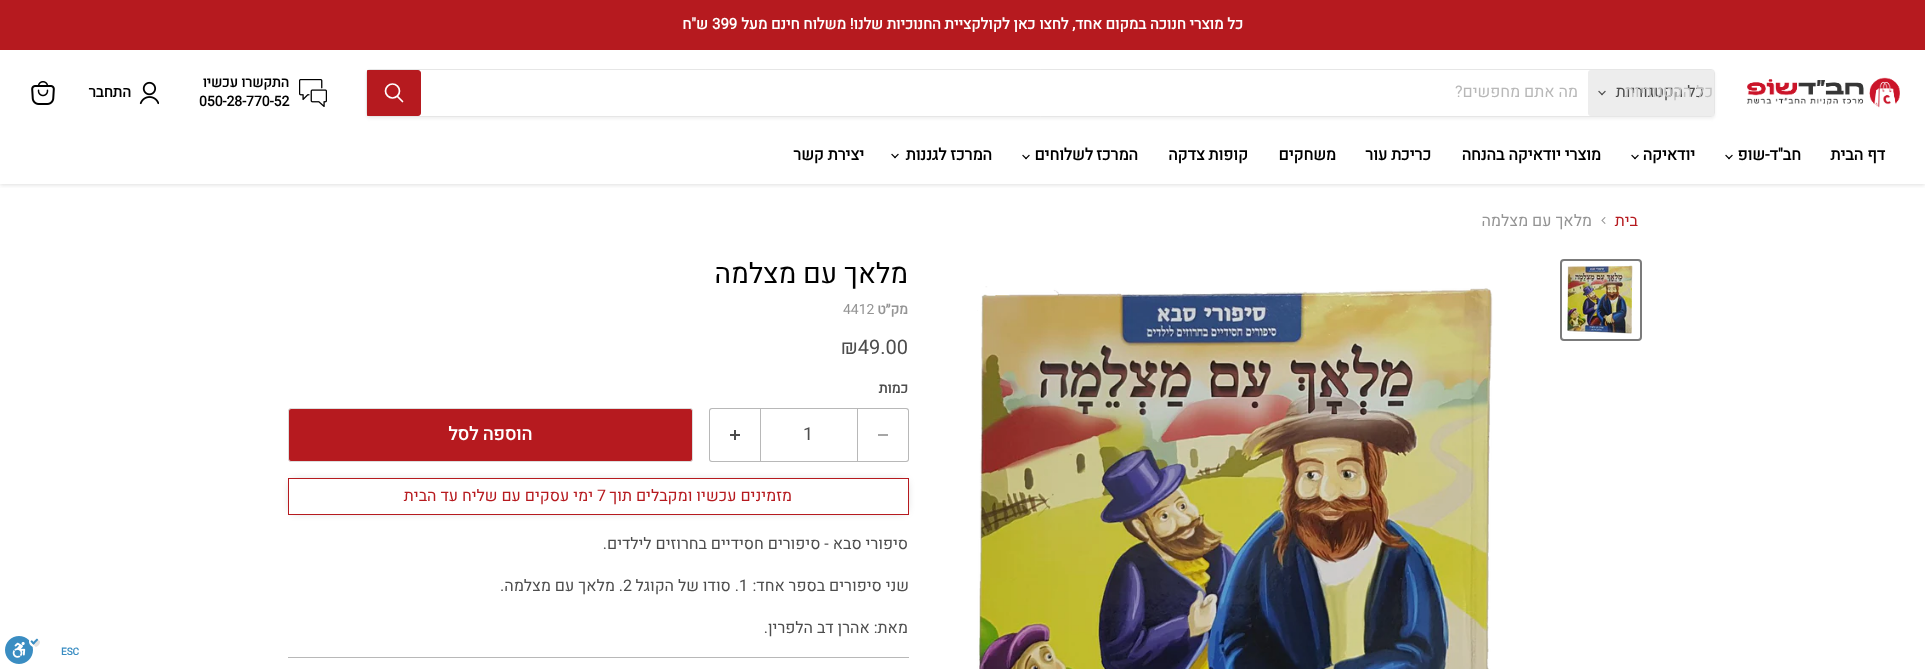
<!DOCTYPE html>
<meta charset="utf-8">
<style>body { margin: 0 } canvas { display: block }</style>
<canvas id="canvas" width="1925" height="669"></canvas>
<img id="img1" src="images/1.png" hidden>
<img id="img2" src="images/2.png" hidden>
<img id="img3" src="images/3.png" hidden>
<img id="img4" src="images/4.png" hidden>
<img id="img5" src="images/5.png" hidden>
<img id="img6" src="images/6.png" hidden>
<img id="img7" src="images/7.png" hidden>
<img id="img8" src="images/8.png" hidden>
<img id="img9" src="images/9.png" hidden>
<img id="img10" src="images/10.png" hidden>
<img id="img11" src="images/11.png" hidden>
<script>
window.onload = function () {
    const canvas = document.getElementById('canvas');
    const context = canvas.getContext('2d');
    context.miterLimit = 4;
    context.fontKerning = 'normal';

    context.fillStyle = 'rgb(255, 255, 255)';
    context.fillRect(0, 0, 1925, 669);
    context.save();
    context.beginPath();
    context.rect(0, 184, 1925, 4);
    context.clip();
    context.fillStyle = 'rgba(128, 128, 128, 0.25)';
    context.filter = 'blur(2px)';
    context.beginPath();
    context.rect(0, 51, 1925, 134);
    context.fill();
    context.filter = 'none';
    context.restore();
    context.fillStyle = 'rgb(182, 26, 31)';
    context.fillRect(0, 0, 1925, 50);
    context.drawImage(document.getElementById('img1'), 1747, 77, 153, 31);
    context.save();
    context.beginPath();
    context.moveTo(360, 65);
    context.lineTo(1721, 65);
    context.lineTo(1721, 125);
    context.lineTo(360, 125);
    context.closePath();
    context.moveTo(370, 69);
    context.lineTo(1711, 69);
    context.bezierCurveTo(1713, 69, 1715, 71, 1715, 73);
    context.lineTo(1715, 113);
    context.bezierCurveTo(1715, 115, 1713, 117, 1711, 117);
    context.lineTo(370, 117);
    context.bezierCurveTo(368, 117, 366, 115, 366, 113);
    context.lineTo(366, 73);
    context.bezierCurveTo(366, 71, 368, 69, 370, 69);
    context.closePath();
    context.clip('evenodd');
    context.fillStyle = 'rgba(128, 128, 128, 0.11)';
    context.filter = 'blur(1.5px)';
    context.beginPath();
    context.roundRect(366, 71, 1349, 48, 4);
    context.fill();
    context.filter = 'none';
    context.restore();
    context.beginPath();
    context.roundRect(366.5, 69.5, 1348, 47, 3.5);
    context.strokeStyle = 'rgba(128, 128, 128, 0.2)';
    context.stroke();
    context.fillStyle = 'rgb(237, 237, 237)';
    context.beginPath();
    context.roundRect(1588, 70, 126, 46, [3, 0, 0, 3]);
    context.fill();
    context.drawImage(document.getElementById('img2'), 1598, 90, 8, 6);
    context.fillStyle = 'rgb(182, 26, 31)';
    context.beginPath();
    context.roundRect(367.5, 70.5, 53, 45, [0, 2.5, 2.5, 0]);
    context.fill();
    context.strokeStyle = 'rgb(182, 26, 31)';
    context.stroke();
    context.beginPath();
    context.moveTo(402.5, 101.5);
    context.lineTo(397.5, 96.5);
    context.strokeStyle = 'rgb(255, 255, 255)';
    context.lineWidth = 1.7;
    context.lineCap = 'round';
    context.stroke();
    context.beginPath();
    context.arc(392.5, 91, 7, 0, 2 * Math.PI);
    context.stroke();
    context.drawImage(document.getElementById('img3'), 299, 79, 28, 28);
    context.drawImage(document.getElementById('img4'), 139, 81, 20, 24);
    context.drawImage(document.getElementById('img5'), 31, 81, 24, 24);
    context.drawImage(document.getElementById('img6'), 1725, 154, 8, 6);
    context.drawImage(document.getElementById('img6'), 1631, 154, 8, 6);
    context.drawImage(document.getElementById('img6'), 1022, 154, 8, 6);
    context.drawImage(document.getElementById('img6'), 891, 153, 8, 6);
    context.drawImage(document.getElementById('img7'), 1601, 217, 5, 7);
    context.beginPath();
    context.roundRect(1561, 260, 80, 80, 3);
    context.strokeStyle = 'rgb(123, 123, 123)';
    context.lineWidth = 2;
    context.stroke();
    context.drawImage(document.getElementById('img8'), 1564, 265, 69, 69);
    context.drawImage(document.getElementById('img9'), 977, 286, 516, 383);
    context.fillStyle = 'rgb(184, 184, 184)';
    context.beginPath();
    context.moveTo(858, 408);
    context.lineTo(906, 408);
    context.bezierCurveTo(908, 408, 909, 409, 909, 411);
    context.lineTo(909, 459);
    context.bezierCurveTo(909, 461, 908, 462, 906, 462);
    context.lineTo(858, 462);
    context.closePath();
    context.moveTo(858, 409);
    context.lineTo(906, 409);
    context.bezierCurveTo(907, 409, 908, 410, 908, 411);
    context.lineTo(908, 459);
    context.bezierCurveTo(908, 460, 907, 461, 906, 461);
    context.lineTo(858, 461);
    context.closePath();
    context.fill('evenodd');
    context.fillStyle = 'rgb(166, 166, 166)';
    context.fillRect(878, 434, 10, 2);
    context.strokeStyle = 'rgb(184, 184, 184)';
    context.lineWidth = 1;
    context.strokeRect(760.5, 408.5, 97, 53);
    context.fillStyle = 'rgb(184, 184, 184)';
    context.beginPath();
    context.moveTo(712, 408);
    context.lineTo(760, 408);
    context.lineTo(760, 462);
    context.lineTo(712, 462);
    context.bezierCurveTo(710, 462, 709, 461, 709, 459);
    context.lineTo(709, 411);
    context.bezierCurveTo(709, 409, 710, 408, 712, 408);
    context.closePath();
    context.moveTo(712, 409);
    context.lineTo(760, 409);
    context.lineTo(760, 461);
    context.lineTo(712, 461);
    context.bezierCurveTo(711, 461, 710, 460, 710, 459);
    context.lineTo(710, 411);
    context.bezierCurveTo(710, 410, 711, 409, 712, 409);
    context.closePath();
    context.fill('evenodd');
    context.drawImage(document.getElementById('img10'), 730, 430, 10, 10);
    context.fillStyle = 'rgb(182, 26, 31)';
    context.beginPath();
    context.roundRect(288.5, 408.5, 404, 53, 2.5);
    context.fill();
    context.strokeStyle = 'rgb(221, 221, 221)';
    context.stroke();
    context.save();
    context.beginPath();
    context.moveTo(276, 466);
    context.lineTo(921, 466);
    context.lineTo(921, 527);
    context.lineTo(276, 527);
    context.closePath();
    context.moveTo(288, 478);
    context.lineTo(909, 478);
    context.lineTo(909, 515);
    context.lineTo(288, 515);
    context.closePath();
    context.clip('evenodd');
    context.fillStyle = 'rgba(0, 0, 0, 0.3)';
    context.filter = 'blur(5px)';
    context.beginPath();
    context.rect(292, 482, 613, 29);
    context.fill();
    context.filter = 'none';
    context.restore();
    context.strokeStyle = 'rgb(182, 26, 31)';
    context.strokeRect(288.5, 478.5, 620, 36);
    context.fillStyle = 'rgb(184, 184, 184)';
    context.fillRect(288, 657, 621, 1);
    context.drawImage(document.getElementById('img11'), 5, 636, 35, 28);
    context.direction = 'rtl';
    context.font = 'bold 15px Heebo';
    context.fillStyle = 'rgb(255, 255, 255)';
    context.fillText('כל מוצרי חנוכה במקום אחד, לחצו כאן לקולקציית החנוכיות שלנו! משלוח חינם מעל', 1243, 29);
    context.direction = 'ltr';
    context.fillText('399', 712, 29);
    context.direction = 'rtl';
    context.fillText('ש"ח', 708, 29);
    context.font = '16px Heebo';
    context.fillStyle = 'rgb(77, 77, 77)';
    context.fillText('כל הקטגוריות', 1704, 97);
    context.fillStyle = 'rgb(193, 193, 193)';
    context.fillText('כל הקטגוריות', 1713, 97);
    context.fillStyle = 'rgb(184, 184, 184)';
    context.fillText('מה אתם מחפשים?', 1578, 97);
    context.font = 'bold 14px Heebo';
    context.fillStyle = 'rgb(0, 0, 0)';
    context.fillText('התקשרו עכשיו', 289, 87);
    context.direction = 'ltr';
    context.fillText('050-28-770-52', 199, 106);
    context.direction = 'rtl';
    context.font = 'bold 15px Heebo';
    context.fillText('התחבר', 131, 97);
    context.font = 'bold 16px Heebo';
    context.fillText('דף הבית', 1885, 160);
    context.fillText('חב"ד-שופ', 1801, 160);
    context.fillText('יודאיקה', 1695, 160);
    context.fillText('מוצרי יודאיקה בהנחה', 1601, 160);
    context.fillText('כריכת עור', 1431, 160);
    context.fillText('משחקים', 1336, 160);
    context.fillText('קופות צדקה', 1248, 160);
    context.fillText('המרכז', 1138, 160);
    context.fillText('לשלוחים', 1093, 160);
    context.fillText('המרכז לגננות', 992, 160);
    context.fillText('יצירת קשר', 864, 160);
    context.font = '16px Heebo';
    context.fillStyle = 'rgb(182, 26, 31)';
    context.fillText('בית', 1638, 226);
    context.fillStyle = 'rgb(148, 148, 148)';
    context.fillText('מלאך עם מצלמה', 1592, 226);
    context.font = '28px Heebo';
    context.fillStyle = 'rgb(0, 0, 0)';
    context.fillText('מלאך עם מצלמה', 908, 283);
    context.font = 'bold 14px Heebo';
    context.fillStyle = 'rgb(148, 148, 148)';
    context.fillText('מק״ט', 908, 314);
    context.direction = 'ltr';
    context.font = '14px Heebo';
    context.fillText('4412', 843, 314);
    context.font = '20px Heebo';
    context.fillStyle = 'rgb(77, 77, 77)';
    context.fillText('₪49.00', 841, 354);
    context.direction = 'rtl';
    context.font = 'bold 14px Heebo';
    context.fillText('כמות', 908, 393);
    context.direction = 'ltr';
    context.font = '18px Heebo';
    context.fillText('1', 803, 440);
    context.direction = 'rtl';
    context.font = 'bold 18px Heebo';
    context.fillStyle = 'rgb(255, 255, 255)';
    context.fillText('הוספה לסל', 532, 440);
    context.font = '16px Heebo';
    context.fillStyle = 'rgb(182, 26, 31)';
    context.fillText('מזמינים עכשיו ומקבלים תוך', 792, 501);
    context.direction = 'ltr';
    context.fillText('7', 597, 501);
    context.direction = 'rtl';
    context.fillText('ימי עסקים עם שליח עד הבית', 593, 501);
    context.fillStyle = 'rgb(77, 77, 77)';
    context.fillText('סיפורי סבא - סיפורים חסידיים בחרוזים לילדים.', 908, 549);
    context.fillText('שני סיפורים בספר אחד:', 909, 591);
    context.direction = 'ltr';
    context.fillText('1', 739, 591);
    context.direction = 'rtl';
    context.fillText('. סודו של הקוגל', 739, 591);
    context.direction = 'ltr';
    context.fillText('2', 623, 591);
    context.direction = 'rtl';
    context.fillText('. מלאך עם מצלמה.', 623, 591);
    context.fillText('מאת: אהרן דב הלפרין.', 908, 633);
    context.direction = 'ltr';
    context.font = 'bold 10px Heebo';
    context.fillStyle = 'rgb(58, 141, 194)';
    context.fillText('ESC', 61, 655);
};
</script>
